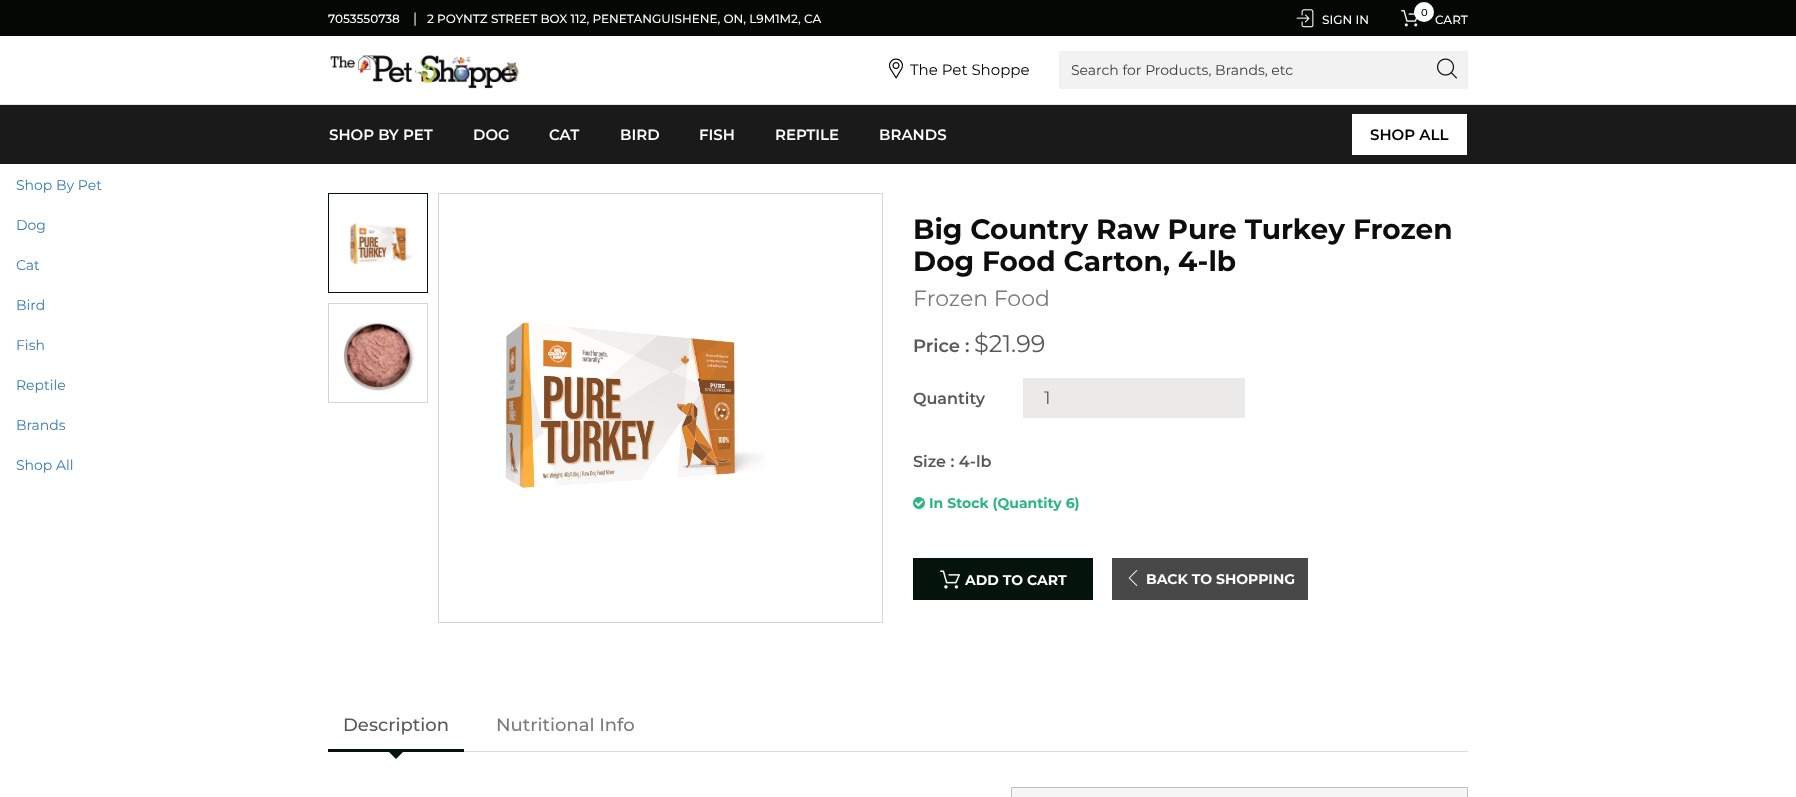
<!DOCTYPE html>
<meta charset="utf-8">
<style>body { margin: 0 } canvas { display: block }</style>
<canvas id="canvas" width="1796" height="797"></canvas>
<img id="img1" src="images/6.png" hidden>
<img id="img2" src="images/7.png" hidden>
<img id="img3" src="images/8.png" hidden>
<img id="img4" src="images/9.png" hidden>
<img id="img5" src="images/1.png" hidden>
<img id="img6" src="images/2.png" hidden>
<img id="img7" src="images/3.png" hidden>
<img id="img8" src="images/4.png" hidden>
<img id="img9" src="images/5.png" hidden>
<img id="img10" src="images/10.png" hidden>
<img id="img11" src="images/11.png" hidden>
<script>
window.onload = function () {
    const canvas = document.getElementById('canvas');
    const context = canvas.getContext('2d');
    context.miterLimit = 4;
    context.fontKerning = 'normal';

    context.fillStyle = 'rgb(255, 255, 255)';
    context.fillRect(0, 0, 1796, 797);
    context.strokeStyle = 'rgb(4, 20, 11)';
    context.strokeRect(328.5, 193.5, 99, 99);
    context.drawImage(document.getElementById('img1'), 349, 223, 64, 42);
    context.strokeStyle = 'rgb(213, 213, 213)';
    context.strokeRect(328.5, 303.5, 99, 99);
    context.drawImage(document.getElementById('img2'), 343, 321, 72, 71);
    context.strokeRect(438.5, 193.5, 444, 429);
    context.drawImage(document.getElementById('img3'), 504, 322, 262, 169);
    context.fillStyle = 'rgb(236, 233, 233)';
    context.fillRect(1023, 378, 222, 40);
    context.drawImage(document.getElementById('img4'), 913, 497, 12, 12);
    context.save();
    context.beginPath();
    context.rect(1, 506, 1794, 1);
    context.clip();
    context.fillStyle = 'rgb(157, 157, 157)';
    context.filter = 'blur(0.5px)';
    context.beginPath();
    context.rect(1, 2, 1794, 504);
    context.fill();
    context.filter = 'none';
    context.restore();
    context.fillStyle = 'rgb(3, 8, 5)';
    context.fillRect(0, 0, 1796, 36);
    context.drawImage(document.getElementById('img5'), 1296, 9, 18, 19);
    context.drawImage(document.getElementById('img6'), 1401, 10, 17, 17);
    context.fillStyle = 'rgb(255, 255, 255)';
    context.beginPath();
    context.arc(1424, 12, 10, 0, 2 * Math.PI);
    context.fill();
    context.fillStyle = 'rgb(230, 230, 230)';
    context.fillRect(0, 104, 1796, 1);
    context.drawImage(document.getElementById('img7'), 330, 55, 189, 34);
    context.drawImage(document.getElementById('img8'), 889, 58, 14, 21);
    context.fillStyle = 'rgb(242, 242, 242)';
    context.fillRect(1059, 51, 409, 38);
    context.drawImage(document.getElementById('img9'), 1437, 58, 20, 21);
    context.fillStyle = 'rgb(26, 26, 26)';
    context.fillRect(0, 105, 1796, 59);
    context.fillStyle = 'rgb(255, 255, 255)';
    context.fillRect(1352, 114, 115, 41);
    context.fillStyle = 'rgb(4, 20, 11)';
    context.fillRect(913, 558, 180, 42);
    context.drawImage(document.getElementById('img10'), 940, 570, 20, 19);
    context.fillStyle = 'rgb(72, 72, 72)';
    context.fillRect(1112, 558, 196, 42);
    context.drawImage(document.getElementById('img11'), 1128, 570, 10, 16);
    context.fillStyle = 'rgb(221, 221, 221)';
    context.fillRect(464, 751, 1004, 1);
    context.fillStyle = 'rgb(4, 20, 11)';
    context.fillRect(328, 749, 136, 3);
    context.beginPath();
    context.moveTo(386, 749);
    context.lineTo(406, 749);
    context.lineTo(396, 759);
    context.closePath();
    context.fill();
    context.fillStyle = 'rgb(246, 246, 246)';
    context.beginPath();
    context.rect(1011.5, 787.5, 456, 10);
    context.fill();
    context.strokeStyle = 'rgb(190, 190, 190)';
    context.stroke();
    context.font = '500 12px Montserrat';
    context.fillStyle = 'rgb(255, 255, 255)';
    context.fillText('7053550738', 328, 23);
    context.font = '14px Montserrat';
    context.fillText('|', 413, 23);
    context.font = '500 12px Montserrat';
    context.fillText('2 POYNTZ STREET BOX 112, PENETANGUISHENE, ON, L9M1M2, CA', 427, 23);
    context.fillText('SIGN IN', 1322, 24);
    context.font = '500 10px Montserrat';
    context.fillStyle = 'rgb(0, 0, 0)';
    context.fillText('0', 1421, 16);
    context.font = '500 12px Montserrat';
    context.fillStyle = 'rgb(255, 255, 255)';
    context.fillText('CART', 1435, 24);
    context.font = '15px Montserrat';
    context.fillStyle = 'rgb(0, 0, 0)';
    context.fillText('The Pet Shoppe', 910, 75);
    context.font = '14px Montserrat';
    context.fillStyle = 'rgb(59, 59, 59)';
    context.fillText('Search for Products, Brands, etc', 1071, 75);
    context.font = '600 15px Montserrat';
    context.fillStyle = 'rgb(255, 255, 255)';
    context.fillText('SHOP BY PET', 329, 140);
    context.fillText('DOG', 473, 140);
    context.fillText('CAT', 549, 140);
    context.fillText('BIRD', 620, 140);
    context.fillText('FISH', 699, 140);
    context.fillText('REPTILE', 775, 140);
    context.fillText('BRANDS', 879, 140);
    context.fillStyle = 'rgb(0, 0, 0)';
    context.fillText('SHOP ALL', 1370, 140);
    context.font = '14px Montserrat';
    context.fillStyle = 'rgb(51, 122, 183)';
    context.fillText('Shop By Pet', 16, 190);
    context.fillText('Dog', 16, 230);
    context.fillText('Cat', 16, 270);
    context.fillText('Bird', 16, 310);
    context.fillText('Fish', 16, 350);
    context.fillText('Reptile', 16, 390);
    context.fillText('Brands', 16, 430);
    context.fillText('Shop All', 16, 470);
    context.font = 'bold 28px Montserrat';
    context.fillStyle = 'rgb(13, 13, 13)';
    context.fillText('Big Country Raw Pure Turkey Frozen', 913, 239);
    context.fillText('Dog Food Carton, 4-lb', 913, 271);
    context.font = '22px Montserrat';
    context.fillStyle = 'rgb(123, 123, 123)';
    context.fillText('Frozen Food', 913, 306);
    context.font = '600 18px Montserrat';
    context.fillStyle = 'rgb(88, 88, 88)';
    context.fillText('Price :', 913, 352);
    context.font = '24px Montserrat';
    context.fillText('$21.99', 974, 352);
    context.font = '600 16px Montserrat';
    context.fillText('Quantity', 913, 404);
    context.font = '18px Montserrat';
    context.fillText('1', 1044, 404);
    context.font = '600 16px Montserrat';
    context.fillText('Size : 4-lb', 913, 467);
    context.font = 'bold 14px Montserrat';
    context.fillStyle = 'rgb(42, 182, 131)';
    context.fillText('In Stock (Quantity 6)', 929, 508);
    context.fillStyle = 'rgb(255, 255, 255)';
    context.fillText('ADD TO CART', 965, 585);
    context.fillText('BACK TO SHOPPING', 1146, 584);
    context.font = '500 18px Montserrat';
    context.fillStyle = 'rgb(88, 88, 88)';
    context.fillText('Description', 343, 731);
    context.fillStyle = 'rgb(123, 123, 123)';
    context.fillText('Nutritional Info', 496, 731);
};
</script>
